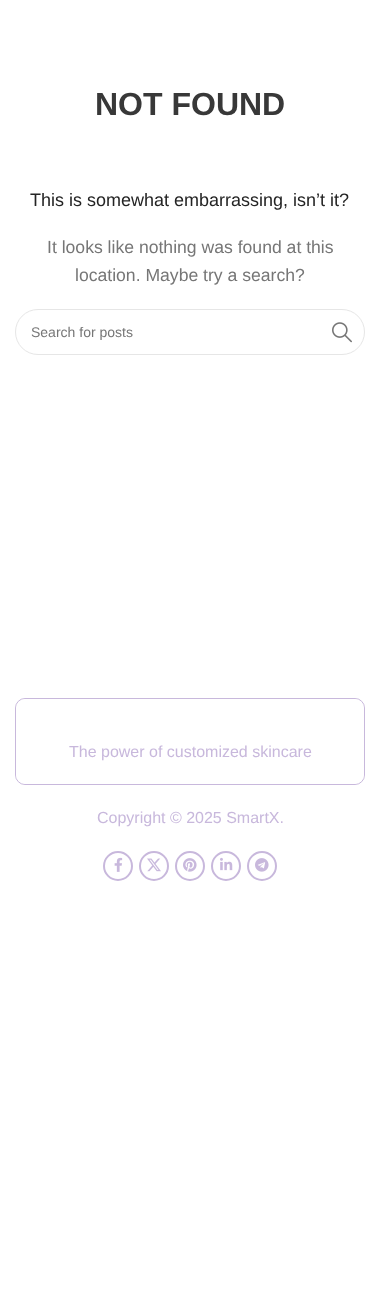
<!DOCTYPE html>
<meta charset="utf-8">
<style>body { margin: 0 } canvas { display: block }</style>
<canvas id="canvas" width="380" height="1315"></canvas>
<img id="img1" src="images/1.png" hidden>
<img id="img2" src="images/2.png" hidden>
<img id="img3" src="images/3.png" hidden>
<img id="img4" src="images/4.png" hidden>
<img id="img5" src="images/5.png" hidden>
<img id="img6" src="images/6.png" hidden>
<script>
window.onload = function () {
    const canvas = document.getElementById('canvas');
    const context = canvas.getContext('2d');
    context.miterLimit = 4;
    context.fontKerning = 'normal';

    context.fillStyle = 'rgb(255, 255, 255)';
    context.fillRect(0, 0, 380, 1315);
    context.beginPath();
    context.roundRect(15.5, 309.5, 349, 45, 22.5);
    context.strokeStyle = 'rgb(230, 230, 230)';
    context.stroke();
    context.drawImage(document.getElementById('img1'), 332, 322, 20, 21);
    context.beginPath();
    context.roundRect(15.5, 698.5, 349, 86, 9.5);
    context.strokeStyle = 'rgb(200, 184, 220)';
    context.stroke();
    context.beginPath();
    context.roundRect(16, 699, 348, 85, 10);
    context.fill();
    context.beginPath();
    context.arc(118, 866, 14, 0, 2 * Math.PI);
    context.lineWidth = 2;
    context.stroke();
    context.drawImage(document.getElementById('img2'), 114, 857, 9, 15);
    context.beginPath();
    context.arc(154, 866, 14, 0, 2 * Math.PI);
    context.stroke();
    context.drawImage(document.getElementById('img3'), 147, 858, 14, 14);
    context.beginPath();
    context.arc(190, 866, 14, 0, 2 * Math.PI);
    context.stroke();
    context.drawImage(document.getElementById('img4'), 183, 858, 14, 14);
    context.beginPath();
    context.arc(226, 866, 14, 0, 2 * Math.PI);
    context.stroke();
    context.drawImage(document.getElementById('img5'), 220, 857, 13, 14);
    context.beginPath();
    context.arc(262, 866, 14, 0, 2 * Math.PI);
    context.stroke();
    context.drawImage(document.getElementById('img6'), 255, 858, 14, 14);
    context.font = 'bold 32px Liberation Sans';
    context.fillStyle = 'rgb(56, 56, 56)';
    context.fillText('NOT FOUND', 95, 115);
    context.font = '18px Liberation Sans';
    context.fillStyle = 'rgb(36, 36, 36)';
    context.fillText('This is somewhat embarrassing, isn’t it?', 30, 206);
    context.font = '17.6px Liberation Sans';
    context.fillStyle = 'rgb(118, 118, 118)';
    context.fillText('It looks like nothing was found at this', 47, 253);
    context.fillText('location. Maybe try a search?', 75, 281);
    context.font = '14px Liberation Sans';
    context.fillText('Search for posts', 31, 337);
    context.font = '16px Liberation Sans';
    context.fillStyle = 'rgb(200, 184, 220)';
    context.fillText('The power of customized skincare', 69, 757);
    context.fillText('Copyright © 2025 SmartX.', 97, 823);
};
</script>
